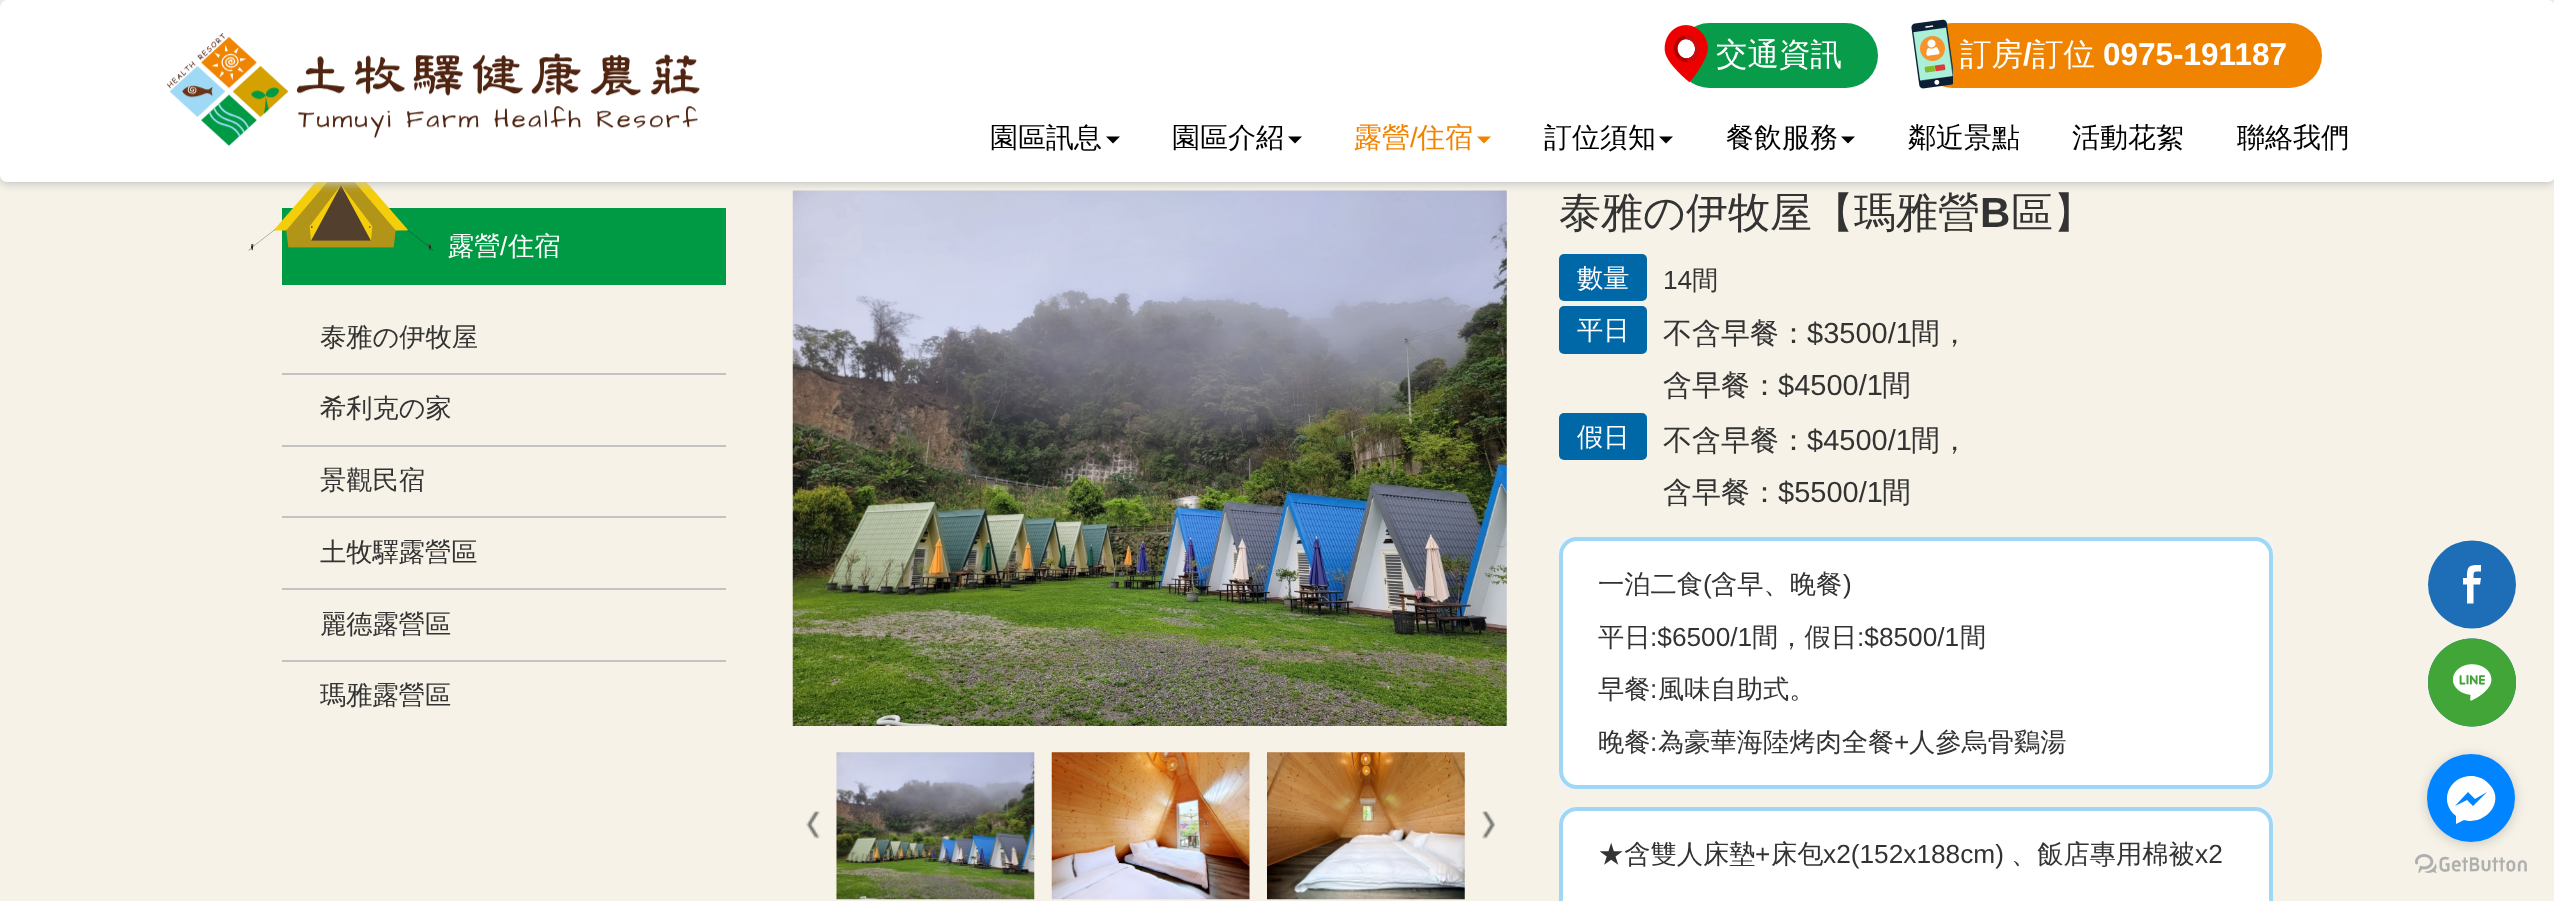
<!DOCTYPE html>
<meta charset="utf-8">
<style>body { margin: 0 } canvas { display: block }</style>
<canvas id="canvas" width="2554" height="901"></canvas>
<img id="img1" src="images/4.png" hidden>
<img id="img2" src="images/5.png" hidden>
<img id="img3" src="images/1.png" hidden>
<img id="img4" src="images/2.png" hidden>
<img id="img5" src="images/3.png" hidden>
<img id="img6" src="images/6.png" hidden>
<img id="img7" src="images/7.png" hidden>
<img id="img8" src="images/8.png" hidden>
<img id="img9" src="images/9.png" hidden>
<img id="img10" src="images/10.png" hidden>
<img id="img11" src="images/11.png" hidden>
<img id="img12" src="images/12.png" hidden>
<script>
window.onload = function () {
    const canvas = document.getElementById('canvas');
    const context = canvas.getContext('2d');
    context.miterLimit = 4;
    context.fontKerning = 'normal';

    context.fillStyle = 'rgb(246, 242, 231)';
    context.fillRect(0, 0, 2554, 901);
    context.fillStyle = 'rgb(0, 153, 68)';
    context.fillRect(282, 208, 444, 77);
    context.drawImage(document.getElementById('img1'), 248, 182, 186, 69);
    context.drawImage(document.getElementById('img2'), 792, 190, 715, 536);
    context.fillStyle = 'rgb(195, 195, 195)';
    context.filter = 'blur(4.5px)';
    context.beginPath();
    context.roundRect(0, 2, 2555, 182, 7);
    context.fill();
    context.filter = 'none';
    context.fillStyle = 'rgb(255, 255, 255)';
    context.beginPath();
    context.roundRect(0, 0, 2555, 182, 7);
    context.fill();
    context.drawImage(document.getElementById('img3'), 167, 33, 533, 114);
    context.fillStyle = 'rgb(8, 156, 74)';
    context.beginPath();
    context.roundRect(1677, 23, 201, 65, 32.5);
    context.fill();
    context.drawImage(document.getElementById('img4'), 1664, 25, 44, 58);
    context.fillStyle = 'rgb(240, 131, 0)';
    context.beginPath();
    context.roundRect(1920, 23, 402, 65, 32.5);
    context.fill();
    context.drawImage(document.getElementById('img5'), 1911, 19, 42, 70);
    context.fillStyle = 'rgb(0, 0, 0)';
    context.beginPath();
    context.moveTo(1106, 136.5);
    context.lineTo(1120, 136.5);
    context.lineTo(1113, 143.5);
    context.closePath();
    context.fill();
    context.beginPath();
    context.moveTo(1288, 136.5);
    context.lineTo(1302, 136.5);
    context.lineTo(1295, 143.5);
    context.closePath();
    context.fill();
    context.fillStyle = 'rgb(240, 131, 0)';
    context.beginPath();
    context.moveTo(1477, 136.5);
    context.lineTo(1491, 136.5);
    context.lineTo(1484, 143.5);
    context.closePath();
    context.fill();
    context.fillStyle = 'rgb(0, 0, 0)';
    context.beginPath();
    context.moveTo(1659, 136.5);
    context.lineTo(1673, 136.5);
    context.lineTo(1666, 143.5);
    context.closePath();
    context.fill();
    context.beginPath();
    context.moveTo(1841, 136.5);
    context.lineTo(1855, 136.5);
    context.lineTo(1848, 143.5);
    context.closePath();
    context.fill();
    context.fillStyle = 'rgb(195, 195, 195)';
    context.fillRect(282, 373, 444, 2);
    context.fillRect(282, 445, 444, 2);
    context.fillRect(282, 516, 444, 2);
    context.fillRect(282, 588, 444, 2);
    context.fillRect(282, 660, 444, 2);
    context.drawImage(document.getElementById('img6'), 806, 811, 14, 28);
    context.drawImage(document.getElementById('img7'), 836, 752, 199, 148);
    context.drawImage(document.getElementById('img8'), 1051, 752, 199, 148);
    context.drawImage(document.getElementById('img9'), 1267, 752, 198, 148);
    context.drawImage(document.getElementById('img10'), 1482, 811, 13, 28);
    context.fillStyle = 'rgb(0, 104, 166)';
    context.beginPath();
    context.roundRect(1559, 254, 88, 47, 5);
    context.fill();
    context.beginPath();
    context.roundRect(1559, 306, 88, 48, 5);
    context.fill();
    context.beginPath();
    context.roundRect(1559, 413, 88, 47, 5);
    context.fill();
    context.fillStyle = 'rgb(243, 243, 243)';
    context.fillRect(1559, 537, 714, 252);
    context.fillStyle = 'rgb(255, 255, 255)';
    context.beginPath();
    context.roundRect(1561, 539, 710, 248, 16);
    context.fill();
    context.strokeStyle = 'rgb(158, 216, 246)';
    context.lineWidth = 4;
    context.stroke();
    context.fillStyle = 'rgb(243, 243, 243)';
    context.fillRect(1559, 807, 714, 18);
    context.fillStyle = 'rgb(255, 255, 255)';
    context.beginPath();
    context.roundRect(1561, 809, 710, 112, 16);
    context.fill();
    context.stroke();
    context.fillStyle = 'rgb(30, 110, 183)';
    context.beginPath();
    context.arc(2472, 584.5, 44, 0, 2 * Math.PI);
    context.fill();
    context.fillStyle = 'rgb(255, 255, 255)';
    context.beginPath();
    context.moveTo(2473.5, 603.5);
    context.lineTo(2473.5, 584.5);
    context.lineTo(2480, 584.5);
    context.lineTo(2481, 578);
    context.lineTo(2473.5, 578);
    context.bezierCurveTo(2473.5, 570.5, 2474, 571.5, 2481, 571.5);
    context.lineTo(2481, 565);
    context.bezierCurveTo(2469, 565, 2467, 565, 2467, 578);
    context.lineTo(2463, 578);
    context.lineTo(2463, 584.5);
    context.lineTo(2467, 584.5);
    context.lineTo(2467, 603.5);
    context.closePath();
    context.fill('evenodd');
    context.drawImage(document.getElementById('img11'), 2428, 638, 88, 89);
    context.drawImage(document.getElementById('img12'), 2415, 854, 112, 19);
    context.fillStyle = 'rgba(136, 136, 136, 0.4)';
    context.filter = 'blur(6px)';
    context.beginPath();
    context.roundRect(2427, 756, 88, 88, 44);
    context.fill();
    context.filter = 'none';
    context.fillStyle = 'rgb(0, 132, 255)';
    context.beginPath();
    context.arc(2471, 798, 44, 0, 2 * Math.PI);
    context.fill();
    context.fillStyle = 'rgb(255, 255, 255)';
    context.beginPath();
    context.moveTo(2471, 776);
    context.bezierCurveTo(2449, 776, 2438, 802, 2456, 816);
    context.lineTo(2456, 824);
    context.lineTo(2464, 820);
    context.bezierCurveTo(2486, 826, 2507, 800, 2488, 783);
    context.bezierCurveTo(2483, 778, 2477, 776, 2471, 776);
    context.closePath();
    context.moveTo(2473, 806);
    context.lineTo(2467, 800);
    context.lineTo(2455, 806);
    context.lineTo(2468, 792);
    context.lineTo(2475, 799);
    context.lineTo(2487, 792);
    context.closePath();
    context.fill();
    context.font = '500 31.5px WenQuanYi Zen Hei';
    context.fillText('交通資訊', 1716, 65);
    context.fillText('訂房', 1960, 65);
    context.font = 'bold 31.5px Liberation Sans';
    context.fillText('/', 2023, 65);
    context.font = '500 31.5px WenQuanYi Zen Hei';
    context.fillText('訂位', 2032, 65);
    context.font = 'bold 31.5px Liberation Sans';
    context.fillText('0975-191187', 2103, 65);
    context.font = '500 28px WenQuanYi Zen Hei';
    context.fillStyle = 'rgb(0, 0, 0)';
    context.fillText('園區訊息', 990, 147);
    context.fillText('園區介紹', 1172, 147);
    context.fillStyle = 'rgb(240, 131, 0)';
    context.fillText('露營', 1354, 147);
    context.font = '28px Liberation Sans';
    context.fillText('/', 1410, 147);
    context.font = '500 28px WenQuanYi Zen Hei';
    context.fillText('住宿', 1417, 147);
    context.fillStyle = 'rgb(0, 0, 0)';
    context.fillText('訂位須知', 1544, 147);
    context.fillText('餐飲服務', 1726, 147);
    context.fillText('鄰近景點', 1908, 147);
    context.fillText('活動花絮', 2072, 147);
    context.fillText('聯絡我們', 2237, 147);
    context.font = '500 26.25px WenQuanYi Zen Hei';
    context.fillStyle = 'rgb(255, 255, 255)';
    context.fillText('露營', 448, 255);
    context.font = '26.25px Liberation Sans';
    context.fillText('/', 500, 255);
    context.font = '500 26.25px WenQuanYi Zen Hei';
    context.fillText('住宿', 508, 255);
    context.fillStyle = 'rgb(51, 51, 51)';
    context.fillText('泰雅の伊牧屋', 320, 346);
    context.fillText('希利克の家', 320, 417);
    context.fillText('景觀民宿', 320, 489);
    context.fillText('土牧驛露營區', 320, 561);
    context.fillText('麗德露營區', 320, 633);
    context.fillText('瑪雅露營區', 320, 704);
    context.font = '500 42px WenQuanYi Zen Hei';
    context.fillText('泰雅の伊牧屋【瑪雅營', 1559, 227);
    context.font = 'bold 42px Liberation Sans';
    context.fillText('B', 1980, 227);
    context.font = '500 42px WenQuanYi Zen Hei';
    context.fillText('區】', 2011, 227);
    context.font = '500 26.25px WenQuanYi Zen Hei';
    context.fillStyle = 'rgb(255, 255, 255)';
    context.fillText('數量', 1577, 287);
    context.font = '26.25px Liberation Sans';
    context.fillStyle = 'rgb(51, 51, 51)';
    context.fillText('14', 1663, 289);
    context.font = '500 26.25px WenQuanYi Zen Hei';
    context.fillText('間', 1692, 289);
    context.fillStyle = 'rgb(255, 255, 255)';
    context.fillText('平日', 1577, 339);
    context.font = '500 29px WenQuanYi Zen Hei';
    context.fillStyle = 'rgb(51, 51, 51)';
    context.fillText('不含早餐：', 1663, 343);
    context.font = '29px Liberation Sans';
    context.fillText('$3500/1', 1807, 343);
    context.font = '500 29px WenQuanYi Zen Hei';
    context.fillText('間，', 1911, 343);
    context.fillText('含早餐：', 1663, 395);
    context.font = '29px Liberation Sans';
    context.fillText('$4500/1', 1778, 395);
    context.font = '500 29px WenQuanYi Zen Hei';
    context.fillText('間', 1882, 395);
    context.font = '500 26.25px WenQuanYi Zen Hei';
    context.fillStyle = 'rgb(255, 255, 255)';
    context.fillText('假日', 1577, 446);
    context.font = '500 29px WenQuanYi Zen Hei';
    context.fillStyle = 'rgb(51, 51, 51)';
    context.fillText('不含早餐：', 1663, 450);
    context.font = '29px Liberation Sans';
    context.fillText('$4500/1', 1807, 450);
    context.font = '500 29px WenQuanYi Zen Hei';
    context.fillText('間，', 1911, 450);
    context.fillText('含早餐：', 1663, 502);
    context.font = '29px Liberation Sans';
    context.fillText('$5500/1', 1778, 502);
    context.font = '500 29px WenQuanYi Zen Hei';
    context.fillText('間', 1882, 502);
    context.font = '500 26.25px WenQuanYi Zen Hei';
    context.fillText('一泊二食', 1598, 593);
    context.font = '26.25px Liberation Sans';
    context.fillText('(', 1703, 593);
    context.font = '500 26.25px WenQuanYi Zen Hei';
    context.fillText('含早、晚餐', 1711, 593);
    context.font = '26.25px Liberation Sans';
    context.fillText(')', 1843, 593);
    context.font = '500 26.25px WenQuanYi Zen Hei';
    context.fillText('平日', 1598, 646);
    context.font = '26.25px Liberation Sans';
    context.fillText(':$6500/1', 1650, 646);
    context.font = '500 26.25px WenQuanYi Zen Hei';
    context.fillText('間，假日', 1752, 646);
    context.font = '26.25px Liberation Sans';
    context.fillText(':$8500/1', 1857, 646);
    context.font = '500 26.25px WenQuanYi Zen Hei';
    context.fillText('間', 1960, 646);
    context.fillText('早餐', 1598, 698);
    context.font = '26.25px Liberation Sans';
    context.fillText(':', 1650, 698);
    context.font = '500 26.25px WenQuanYi Zen Hei';
    context.fillText('風味自助式。', 1658, 698);
    context.fillText('晚餐', 1598, 751);
    context.font = '26.25px Liberation Sans';
    context.fillText(':', 1650, 751);
    context.font = '500 26.25px WenQuanYi Zen Hei';
    context.fillText('為豪華海陸烤肉全餐', 1658, 751);
    context.font = '26.25px Liberation Sans';
    context.fillText('+', 1894, 751);
    context.font = '500 26.25px WenQuanYi Zen Hei';
    context.fillText('人參烏骨鷄湯', 1909, 751);
    context.fillText('★含雙人床墊', 1598, 863);
    context.font = '26.25px Liberation Sans';
    context.fillText('+', 1755, 863);
    context.font = '500 26.25px WenQuanYi Zen Hei';
    context.fillText('床包', 1771, 863);
    context.font = '26.25px Liberation Sans';
    context.fillText('x2(152x188cm)', 1823, 863);
    context.font = '500 26.25px WenQuanYi Zen Hei';
    context.fillText('、飯店專用棉被', 2011, 863);
    context.font = '26.25px Liberation Sans';
    context.fillText('x2', 2195, 863);
};
</script>
